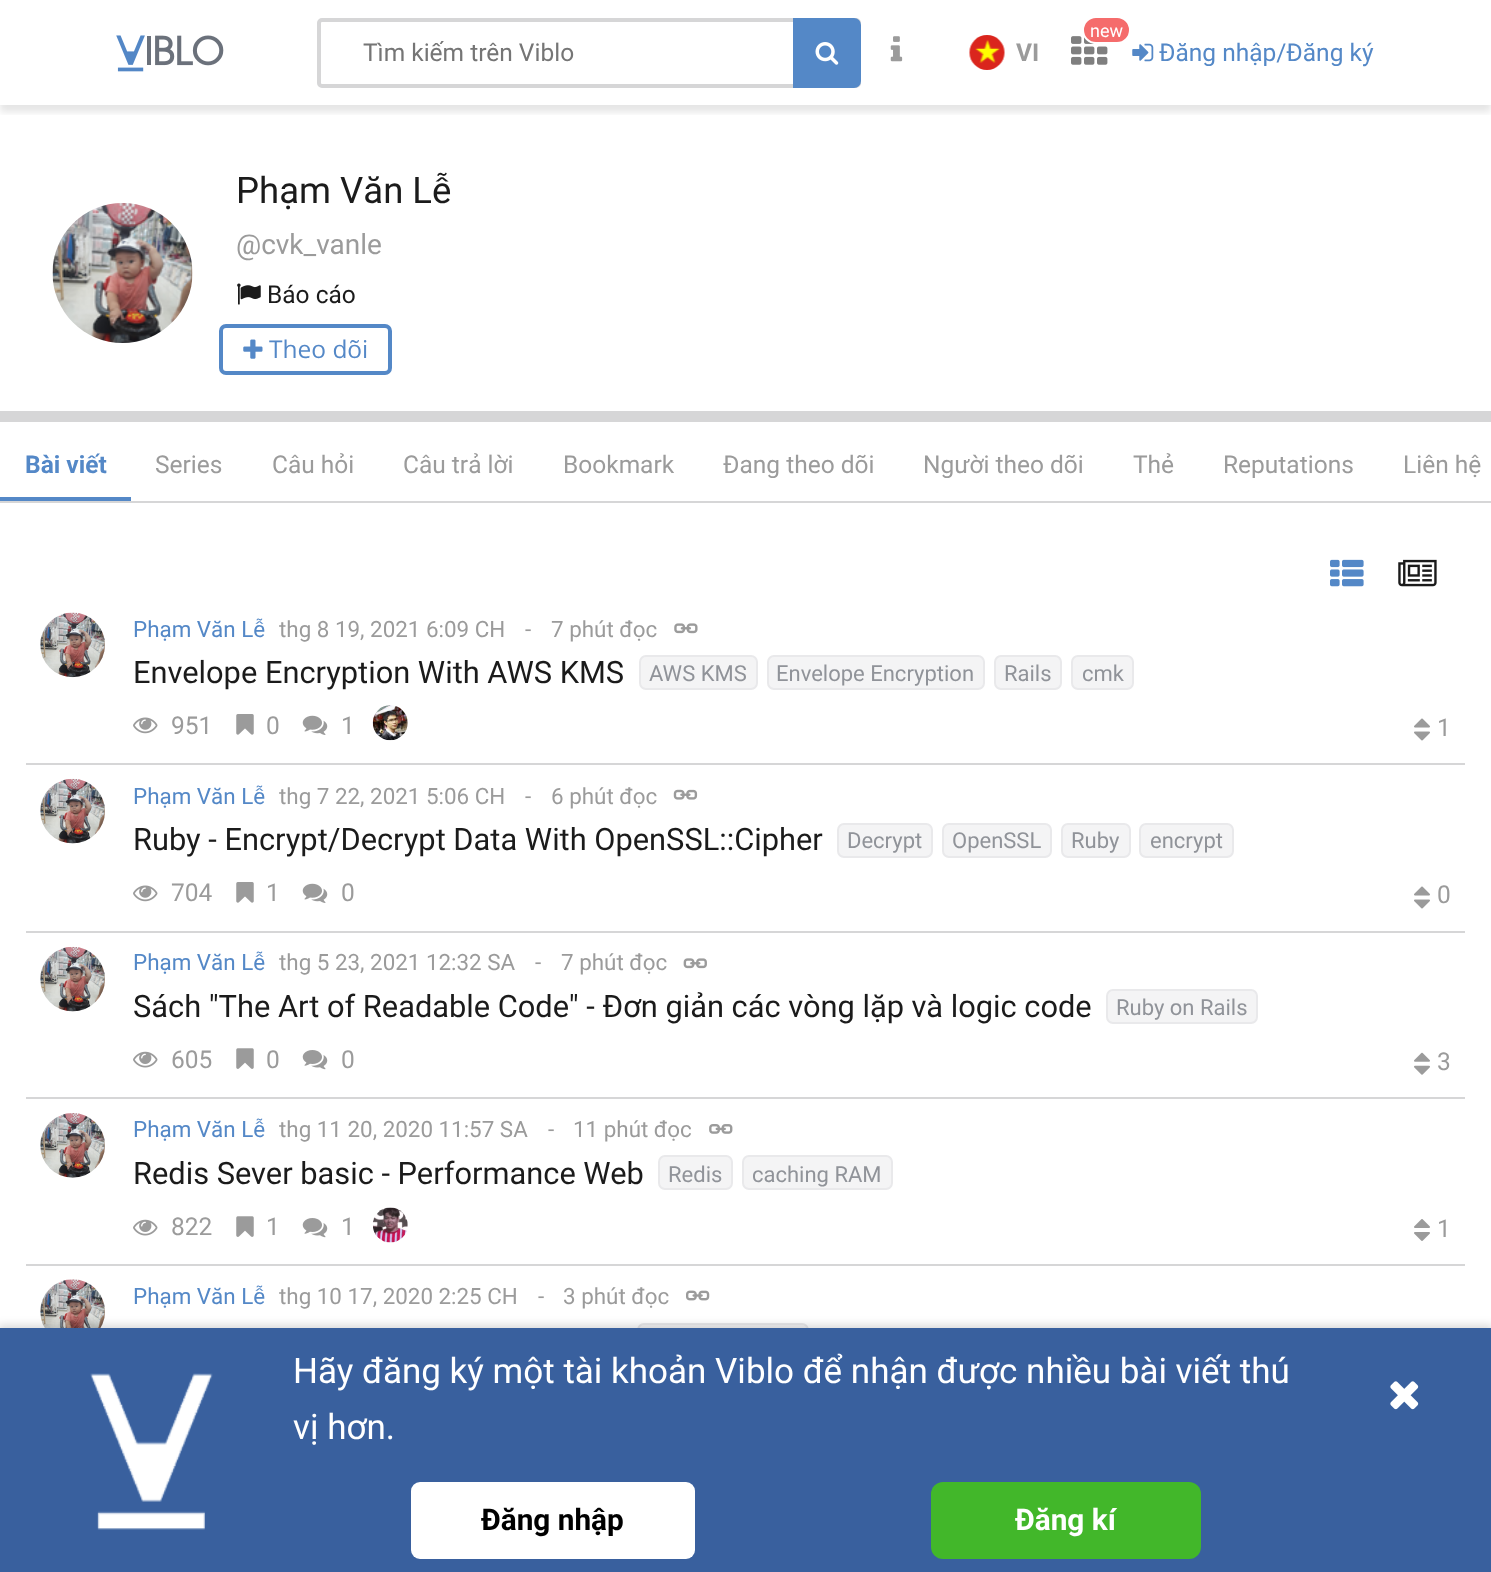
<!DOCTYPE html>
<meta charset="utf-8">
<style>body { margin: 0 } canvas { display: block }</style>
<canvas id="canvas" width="1491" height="1572"></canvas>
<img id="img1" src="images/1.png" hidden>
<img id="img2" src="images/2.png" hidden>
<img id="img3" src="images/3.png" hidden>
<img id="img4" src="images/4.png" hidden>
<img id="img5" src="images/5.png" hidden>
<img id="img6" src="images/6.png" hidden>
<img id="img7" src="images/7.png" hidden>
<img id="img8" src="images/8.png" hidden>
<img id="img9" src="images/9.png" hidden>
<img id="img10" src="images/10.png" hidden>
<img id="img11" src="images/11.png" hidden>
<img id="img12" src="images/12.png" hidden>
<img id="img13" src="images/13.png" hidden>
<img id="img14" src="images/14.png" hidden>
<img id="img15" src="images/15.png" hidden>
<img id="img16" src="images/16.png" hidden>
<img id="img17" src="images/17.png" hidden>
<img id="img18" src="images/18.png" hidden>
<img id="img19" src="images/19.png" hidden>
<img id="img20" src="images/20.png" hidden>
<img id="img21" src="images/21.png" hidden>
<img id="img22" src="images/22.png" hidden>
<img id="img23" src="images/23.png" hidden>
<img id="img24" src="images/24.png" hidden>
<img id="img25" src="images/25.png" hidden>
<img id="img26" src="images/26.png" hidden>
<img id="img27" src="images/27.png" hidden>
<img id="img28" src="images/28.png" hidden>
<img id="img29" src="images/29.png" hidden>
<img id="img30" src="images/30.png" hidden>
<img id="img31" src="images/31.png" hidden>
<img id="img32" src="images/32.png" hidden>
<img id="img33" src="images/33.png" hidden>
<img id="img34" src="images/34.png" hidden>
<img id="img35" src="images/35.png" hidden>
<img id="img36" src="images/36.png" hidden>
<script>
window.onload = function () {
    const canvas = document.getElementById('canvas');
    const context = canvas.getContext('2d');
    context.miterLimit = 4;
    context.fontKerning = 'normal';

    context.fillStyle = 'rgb(255, 255, 255)';
    context.fillRect(0, 0, 1491, 1572);
    context.save();
    context.beginPath();
    context.rect(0, 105, 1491, 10);
    context.clip();
    context.fillStyle = 'rgba(0, 0, 0, 0.1)';
    context.filter = 'blur(3.5px)';
    context.beginPath();
    context.rect(0, 7, 1491, 105);
    context.fill();
    context.filter = 'none';
    context.restore();
    context.drawImage(document.getElementById('img1'), 116, 35, 108, 37);
    context.beginPath();
    context.roundRect(319, 20, 540, 66, 3);
    context.strokeStyle = 'rgb(214, 214, 215)';
    context.lineWidth = 4;
    context.stroke();
    context.fillStyle = 'rgb(84, 136, 199)';
    context.beginPath();
    context.roundRect(794, 19, 66, 68, [0, 6, 6, 0]);
    context.fill();
    context.strokeStyle = 'rgb(84, 136, 199)';
    context.lineWidth = 2;
    context.stroke();
    context.drawImage(document.getElementById('img2'), 815, 42, 24, 23);
    context.drawImage(document.getElementById('img3'), 890, 36, 13, 26);
    context.drawImage(document.getElementById('img4'), 1071, 36, 37, 29);
    context.fillStyle = 'rgb(245, 108, 108)';
    context.beginPath();
    context.roundRect(1083, 17, 47, 26, 13);
    context.fill();
    context.strokeStyle = 'rgb(255, 255, 255)';
    context.stroke();
    context.drawImage(document.getElementById('img5'), 969, 35, 36, 35);
    context.drawImage(document.getElementById('img6'), 1132, 43, 22, 19);
    context.drawImage(document.getElementById('img7'), 52, 203, 141, 140);
    context.drawImage(document.getElementById('img8'), 237, 283, 24, 22);
    context.beginPath();
    context.roundRect(221, 326, 169, 47, 5);
    context.strokeStyle = 'rgb(84, 136, 199)';
    context.lineWidth = 4;
    context.stroke();
    context.drawImage(document.getElementById('img9'), 243, 339, 20, 20);
    context.fillStyle = 'rgb(214, 214, 215)';
    context.fillRect(0, 411, 1491, 11);
    context.fillRect(0, 501, 1491, 2);
    context.fillStyle = 'rgb(84, 136, 199)';
    context.fillRect(0, 497, 131, 4);
    context.drawImage(document.getElementById('img10'), 1330, 559, 34, 28);
    context.drawImage(document.getElementById('img11'), 1398, 559, 39, 28);
    context.fillStyle = 'rgb(214, 214, 215)';
    context.fillRect(26, 763, 1439, 2);
    context.drawImage(document.getElementById('img12'), 40, 612, 65, 66);
    context.drawImage(document.getElementById('img13'), 674, 623, 24, 11);
    context.fillStyle = 'rgb(244, 244, 245)';
    context.beginPath();
    context.roundRect(640, 656, 117, 33, 6);
    context.fill();
    context.strokeStyle = 'rgb(233, 233, 235)';
    context.lineWidth = 2;
    context.stroke();
    context.beginPath();
    context.roundRect(768, 656, 216, 33, 6);
    context.fill();
    context.stroke();
    context.beginPath();
    context.roundRect(995, 656, 66, 33, 6);
    context.fill();
    context.stroke();
    context.beginPath();
    context.roundRect(1072, 656, 61, 33, 6);
    context.fill();
    context.stroke();
    context.drawImage(document.getElementById('img14'), 133, 717, 25, 17);
    context.drawImage(document.getElementById('img15'), 236, 714, 18, 21);
    context.drawImage(document.getElementById('img16'), 302, 715, 26, 20);
    context.drawImage(document.getElementById('img17'), 372, 705, 36, 36);
    context.drawImage(document.getElementById('img18'), 1414, 718, 16, 10);
    context.drawImage(document.getElementById('img19'), 1414, 731, 16, 10);
    context.fillStyle = 'rgb(214, 214, 215)';
    context.fillRect(26, 931, 1439, 2);
    context.drawImage(document.getElementById('img20'), 40, 778, 65, 66);
    context.drawImage(document.getElementById('img21'), 673, 789, 25, 11);
    context.fillStyle = 'rgb(244, 244, 245)';
    context.beginPath();
    context.roundRect(838, 824, 94, 33, 6);
    context.fill();
    context.stroke();
    context.beginPath();
    context.roundRect(943, 824, 108, 33, 6);
    context.fill();
    context.stroke();
    context.beginPath();
    context.roundRect(1062, 824, 68, 33, 6);
    context.fill();
    context.stroke();
    context.beginPath();
    context.roundRect(1140, 824, 93, 33, 6);
    context.fill();
    context.stroke();
    context.drawImage(document.getElementById('img14'), 133, 885, 25, 17);
    context.drawImage(document.getElementById('img15'), 236, 882, 18, 21);
    context.drawImage(document.getElementById('img16'), 302, 883, 26, 20);
    context.drawImage(document.getElementById('img18'), 1414, 886, 16, 10);
    context.drawImage(document.getElementById('img19'), 1414, 899, 16, 10);
    context.fillStyle = 'rgb(214, 214, 215)';
    context.fillRect(26, 1097, 1439, 2);
    context.drawImage(document.getElementById('img20'), 40, 946, 65, 66);
    context.drawImage(document.getElementById('img22'), 683, 958, 24, 11);
    context.fillStyle = 'rgb(244, 244, 245)';
    context.beginPath();
    context.roundRect(1107, 990, 150, 33, 6);
    context.fill();
    context.stroke();
    context.drawImage(document.getElementById('img23'), 133, 1051, 25, 17);
    context.drawImage(document.getElementById('img24'), 236, 1048, 18, 21);
    context.drawImage(document.getElementById('img25'), 302, 1050, 26, 20);
    context.drawImage(document.getElementById('img26'), 1414, 1052, 16, 10);
    context.drawImage(document.getElementById('img27'), 1414, 1065, 16, 10);
    context.fillStyle = 'rgb(214, 214, 215)';
    context.fillRect(26, 1264, 1439, 2);
    context.drawImage(document.getElementById('img28'), 40, 1113, 65, 65);
    context.drawImage(document.getElementById('img29'), 709, 1124, 24, 10);
    context.fillStyle = 'rgb(244, 244, 245)';
    context.beginPath();
    context.roundRect(659, 1156, 73, 33, 6);
    context.fill();
    context.stroke();
    context.beginPath();
    context.roundRect(743, 1156, 149, 33, 6);
    context.fill();
    context.stroke();
    context.drawImage(document.getElementById('img23'), 133, 1219, 25, 17);
    context.drawImage(document.getElementById('img24'), 236, 1216, 18, 21);
    context.drawImage(document.getElementById('img25'), 302, 1218, 26, 20);
    context.drawImage(document.getElementById('img30'), 373, 1207, 35, 36);
    context.drawImage(document.getElementById('img31'), 1414, 1219, 16, 9);
    context.drawImage(document.getElementById('img32'), 1414, 1232, 16, 9);
    context.drawImage(document.getElementById('img33'), 40, 1279, 65, 49);
    context.drawImage(document.getElementById('img34'), 686, 1290, 24, 11);
    context.beginPath();
    context.roundRect(638, 1324, 170, 33, 6);
    context.fill();
    context.stroke();
    context.fillStyle = 'rgba(0, 0, 0, 0.15)';
    context.filter = 'blur(4.5px)';
    context.beginPath();
    context.rect(-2, 1325, 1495, 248);
    context.fill();
    context.filter = 'none';
    context.fillStyle = 'rgb(57, 96, 158)';
    context.fillRect(0, 1328, 1491, 244);
    context.drawImage(document.getElementById('img35'), 90, 1373, 123, 157);
    context.fillStyle = 'rgb(255, 255, 255)';
    context.beginPath();
    context.roundRect(411, 1482, 284, 77, 9);
    context.fill();
    context.fillStyle = 'rgb(66, 183, 42)';
    context.beginPath();
    context.roundRect(931, 1482, 270, 77, 12);
    context.fill();
    context.drawImage(document.getElementById('img36'), 1390, 1381, 29, 29);
    context.font = '24.5px Roboto';
    context.fillStyle = 'rgb(117, 117, 117)';
    context.fillText('Tìm kiếm trên Viblo', 363, 61);
    context.font = '18px Roboto';
    context.fillStyle = 'rgb(255, 255, 255)';
    context.fillText('new', 1090, 37);
    context.font = 'bold 24.5px Roboto';
    context.fillStyle = 'rgb(155, 155, 155)';
    context.fillText('VI', 1016, 61);
    context.font = '24.5px Roboto';
    context.fillStyle = 'rgb(84, 136, 199)';
    context.fillText('Đăng nhập/Đăng ký', 1159, 61);
    context.font = '36.5px Roboto';
    context.fillStyle = 'rgb(27, 27, 27)';
    context.fillText('Phạm Văn Lễ', 236, 203);
    context.font = '28px Roboto';
    context.fillStyle = 'rgb(155, 155, 155)';
    context.fillText('@cvk_vanle', 236, 254);
    context.font = '24.5px Roboto';
    context.fillStyle = 'rgb(27, 27, 27)';
    context.fillText('Báo cáo', 267, 303);
    context.font = '24.5px Open Sans';
    context.fillStyle = 'rgb(84, 136, 199)';
    context.fillText('Theo dõi', 269, 358);
    context.font = 'bold 24.5px Roboto';
    context.fillText('Bài viết', 25, 473);
    context.font = '24.5px Roboto';
    context.fillStyle = 'rgb(155, 155, 155)';
    context.fillText('Series', 155, 473);
    context.fillText('Câu hỏi', 272, 473);
    context.fillText('Câu trả lời', 403, 473);
    context.fillText('Bookmark', 563, 473);
    context.fillText('Đang theo dõi', 723, 473);
    context.fillText('Người theo dõi', 923, 473);
    context.fillText('Thẻ', 1133, 473);
    context.fillText('Reputations', 1223, 473);
    context.fillText('Liên hệ', 1403, 473);
    context.font = '22.4px Roboto';
    context.fillStyle = 'rgb(84, 136, 199)';
    context.fillText('Phạm Văn Lễ', 133, 637);
    context.fillStyle = 'rgb(155, 155, 155)';
    context.fillText('thg 8 19, 2021 6:09 CH', 279, 637);
    context.fillText('-', 525, 637);
    context.fillText('7 phút đọc', 551, 637);
    context.font = '30.8px Roboto';
    context.fillStyle = 'rgb(27, 27, 27)';
    context.fillText('Envelope Encryption With AWS KMS', 133, 683);
    context.font = '22px Roboto';
    context.fillStyle = 'rgb(144, 147, 153)';
    context.fillText('AWS KMS', 649, 681);
    context.fillText('Envelope Encryption', 776, 681);
    context.fillText('Rails', 1004, 681);
    context.fillText('cmk', 1082, 681);
    context.font = '24.5px Roboto';
    context.fillStyle = 'rgb(155, 155, 155)';
    context.fillText('951', 171, 734);
    context.fillText('0', 266, 734);
    context.fillText('1', 341, 734);
    context.fillText('1', 1437, 736);
    context.font = '22.4px Roboto';
    context.fillStyle = 'rgb(84, 136, 199)';
    context.fillText('Phạm Văn Lễ', 133, 804);
    context.fillStyle = 'rgb(155, 155, 155)';
    context.fillText('thg 7 22, 2021 5:06 CH', 279, 804);
    context.fillText('-', 525, 804);
    context.fillText('6 phút đọc', 551, 804);
    context.font = '30.8px Roboto';
    context.fillStyle = 'rgb(27, 27, 27)';
    context.fillText('Ruby - Encrypt/Decrypt Data With OpenSSL::Cipher', 133, 850);
    context.font = '22px Roboto';
    context.fillStyle = 'rgb(144, 147, 153)';
    context.fillText('Decrypt', 847, 848);
    context.fillText('OpenSSL', 952, 848);
    context.fillText('Ruby', 1071, 848);
    context.fillText('encrypt', 1150, 848);
    context.font = '24.5px Roboto';
    context.fillStyle = 'rgb(155, 155, 155)';
    context.fillText('704', 171, 901);
    context.fillText('1', 266, 901);
    context.fillText('0', 341, 901);
    context.fillText('0', 1437, 903);
    context.font = '22.4px Roboto';
    context.fillStyle = 'rgb(84, 136, 199)';
    context.fillText('Phạm Văn Lễ', 133, 970);
    context.fillStyle = 'rgb(155, 155, 155)';
    context.fillText('thg 5 23, 2021 12:32 SA', 279, 970);
    context.fillText('-', 535, 970);
    context.fillText('7 phút đọc', 561, 970);
    context.font = '30.8px Roboto';
    context.fillStyle = 'rgb(27, 27, 27)';
    context.fillText('Sách "The Art of Readable Code" - Đơn giản các vòng lặp và logic code', 133, 1017);
    context.font = '22px Roboto';
    context.fillStyle = 'rgb(144, 147, 153)';
    context.fillText('Ruby on Rails', 1116, 1015);
    context.font = '24.5px Roboto';
    context.fillStyle = 'rgb(155, 155, 155)';
    context.fillText('605', 171, 1068);
    context.fillText('0', 266, 1068);
    context.fillText('0', 341, 1068);
    context.fillText('3', 1437, 1070);
    context.font = '22.4px Roboto';
    context.fillStyle = 'rgb(84, 136, 199)';
    context.fillText('Phạm Văn Lễ', 133, 1137);
    context.fillStyle = 'rgb(155, 155, 155)';
    context.fillText('thg 11 20, 2020 11:57 SA', 279, 1137);
    context.fillText('-', 548, 1137);
    context.fillText('11 phút đọc', 573, 1137);
    context.font = '30.8px Roboto';
    context.fillStyle = 'rgb(27, 27, 27)';
    context.fillText('Redis Sever basic - Performance Web', 133, 1184);
    context.font = '22px Roboto';
    context.fillStyle = 'rgb(144, 147, 153)';
    context.fillText('Redis', 668, 1182);
    context.fillText('caching RAM', 752, 1182);
    context.font = '24.5px Roboto';
    context.fillStyle = 'rgb(155, 155, 155)';
    context.fillText('822', 171, 1235);
    context.fillText('1', 266, 1235);
    context.fillText('1', 341, 1235);
    context.fillText('1', 1437, 1237);
    context.font = '22.4px Roboto';
    context.fillStyle = 'rgb(84, 136, 199)';
    context.fillText('Phạm Văn Lễ', 133, 1304);
    context.fillStyle = 'rgb(155, 155, 155)';
    context.fillText('thg 10 17, 2020 2:25 CH', 279, 1304);
    context.fillText('-', 538, 1304);
    context.fillText('3 phút đọc', 563, 1304);
    context.font = '35px Roboto';
    context.fillStyle = 'rgb(255, 255, 255)';
    context.fillText('Hãy đăng ký một tài khoản Viblo để nhận được nhiều bài viết thú', 293, 1383);
    context.fillText('vị hơn.', 293, 1439);
    context.font = 'bold 29.75px Roboto';
    context.fillStyle = 'rgb(0, 0, 0)';
    context.fillText('Đăng nhập', 481, 1530);
    context.fillStyle = 'rgb(255, 255, 255)';
    context.fillText('Đăng kí', 1015, 1530);
};
</script>
